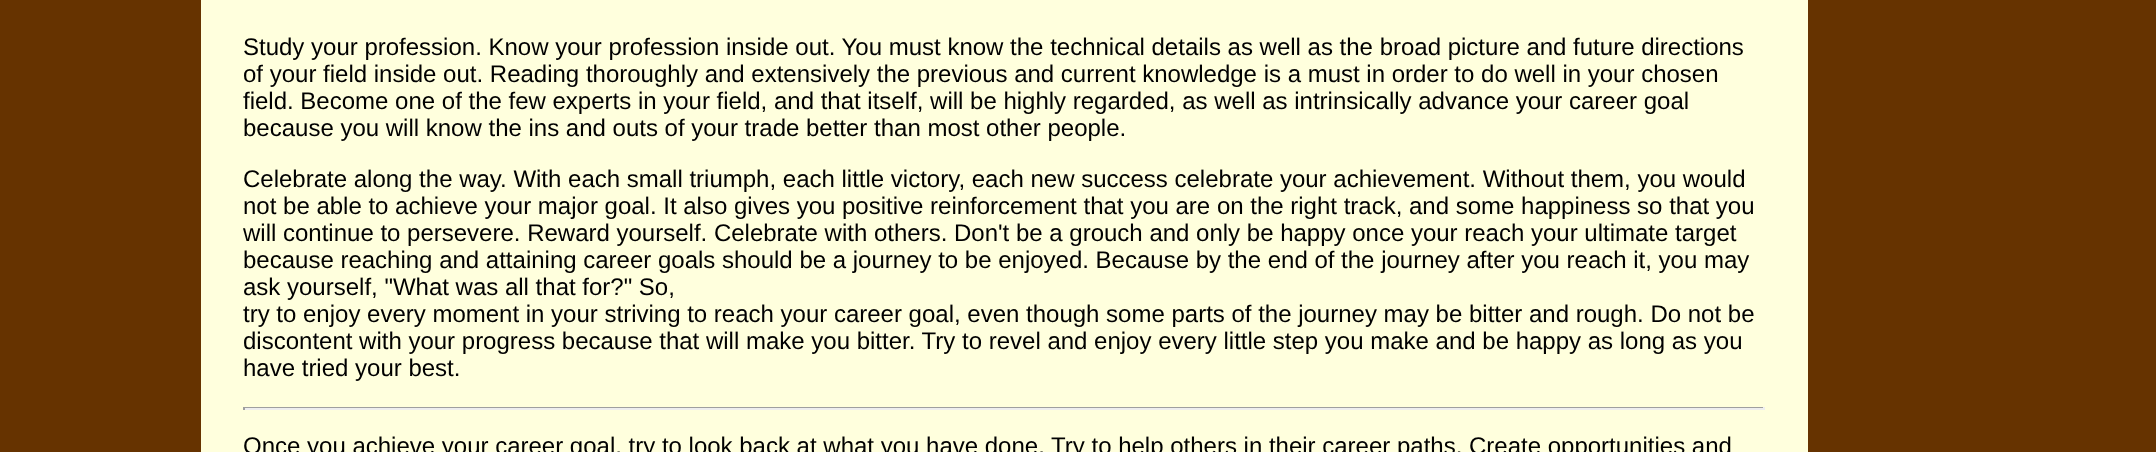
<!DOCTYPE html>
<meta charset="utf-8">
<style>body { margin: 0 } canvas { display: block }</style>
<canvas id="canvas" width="2156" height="452"></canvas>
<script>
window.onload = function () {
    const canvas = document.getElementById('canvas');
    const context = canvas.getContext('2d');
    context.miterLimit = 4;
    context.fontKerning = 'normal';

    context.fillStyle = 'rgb(102, 51, 0)';
    context.fillRect(0, 0, 2156, 452);
    context.fillStyle = 'rgb(255, 255, 221)';
    context.fillRect(201, 0, 1607, 452);
    context.fillStyle = 'rgb(159, 159, 159)';
    context.fillRect(243, 407, 1521, 1);
    context.fillStyle = 'rgb(238, 238, 238)';
    context.fillRect(1763, 407, 2, 3);
    context.fillRect(243, 408, 1521, 2);
    context.fillStyle = 'rgb(159, 159, 159)';
    context.fillRect(243, 407, 2, 3);
    context.font = '24px Liberation Sans';
    context.fillStyle = 'rgb(0, 0, 0)';
    context.fillText('Study your profession. Know your profession inside out. You must know the technical details as well as the broad picture and future directions', 243, 55);
    context.fillText('of your field inside out. Reading thoroughly and extensively the previous and current knowledge is a must in order to do well in your chosen', 243, 82);
    context.fillText('field. Become one of the few experts in your field, and that itself, will be highly regarded, as well as intrinsically advance your career goal', 243, 109);
    context.fillText('because you will know the ins and outs of your trade better than most other people.', 243, 136);
    context.fillText('Celebrate along the way. With each small triumph, each little victory, each new success celebrate your achievement. Without them, you would', 243, 187);
    context.fillText('not be able to achieve your major goal. It also gives you positive reinforcement that you are on the right track, and some happiness so that you', 243, 214);
    context.fillText('will continue to persevere. Reward yourself. Celebrate with others. Don\'t be a grouch and only be happy once your reach your ultimate target', 243, 241);
    context.fillText('because reaching and attaining career goals should be a journey to be enjoyed. Because by the end of the journey after you reach it, you may', 243, 268);
    context.fillText('ask yourself, "What was all that for?" So,', 243, 295);
    context.fillText('try to enjoy every moment in your striving to reach your career goal, even though some parts of the journey may be bitter and rough. Do not be', 243, 322);
    context.fillText('discontent with your progress because that will make you bitter. Try to revel and enjoy every little step you make and be happy as long as you', 243, 349);
    context.fillText('have tried your best.', 243, 376);
    context.fillText('Once you achieve your career goal, try to look back at what you have done. Try to help others in their career paths. Create opportunities and', 243, 454);
};
</script>
